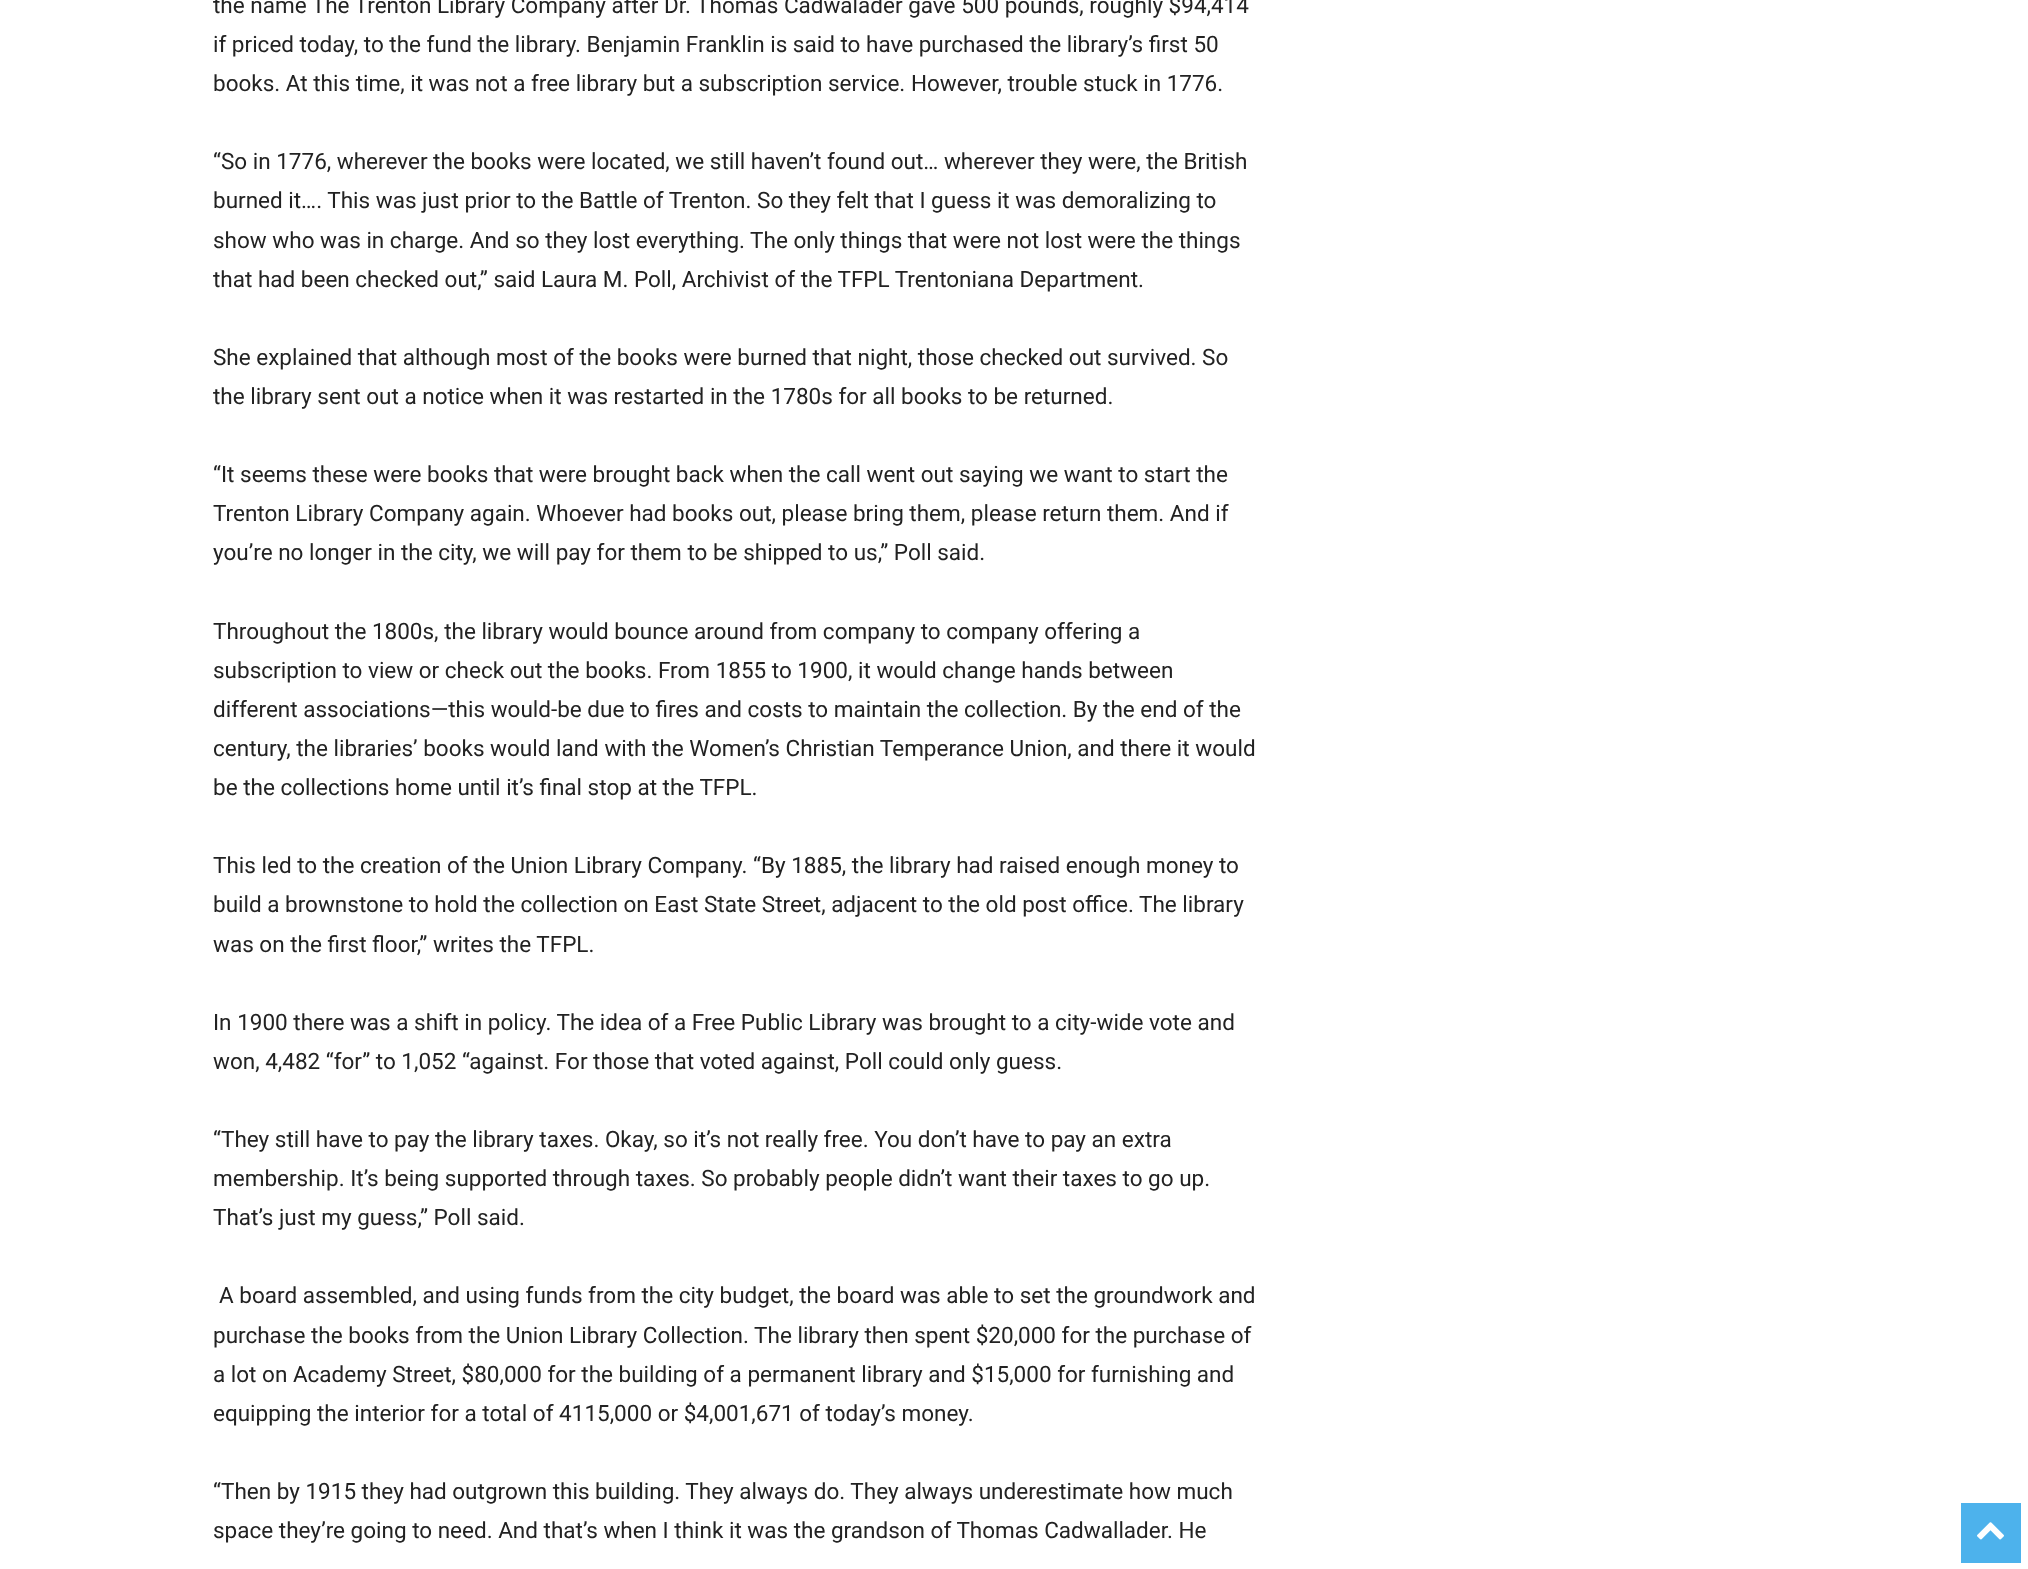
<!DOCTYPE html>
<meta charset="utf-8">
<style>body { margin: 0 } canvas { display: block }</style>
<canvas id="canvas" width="2028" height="1569"></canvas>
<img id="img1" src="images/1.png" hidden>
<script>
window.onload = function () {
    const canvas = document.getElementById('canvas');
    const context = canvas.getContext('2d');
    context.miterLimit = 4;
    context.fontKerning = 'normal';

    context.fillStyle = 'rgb(255, 255, 255)';
    context.fillRect(0, 0, 2028, 1569);
    context.fillStyle = 'rgb(77, 178, 236)';
    context.fillRect(1961, 1503, 60, 60);
    context.drawImage(document.getElementById('img1'), 1977, 1522, 27, 18);
    context.font = '22.5px Roboto';
    context.fillStyle = 'rgb(34, 34, 34)';
    context.fillText('the name The Trenton Library Company after Dr. Thomas Cadwalader gave 500 pounds, roughly $94,414', 213, 13);
    context.fillText('if priced today, to the fund the library. Benjamin Franklin is said to have purchased the library’s first 50', 213, 52);
    context.fillText('books. At this time, it was not a free library but a subscription service. However, trouble stuck in 1776.', 213, 91);
    context.fillText('“So in 1776, wherever the books were located, we still haven’t found out… wherever they were, the British', 213, 169);
    context.fillText('burned it…. This was just prior to the Battle of Trenton. So they felt that I guess it was demoralizing to', 213, 208);
    context.fillText('show who was in charge. And so they lost everything. The only things that were not lost were the things', 213, 248);
    context.fillText('that had been checked out,” said Laura M. Poll, Archivist of the TFPL Trentoniana Department.', 213, 287);
    context.fillText('She explained that although most of the books were burned that night, those checked out survived. So', 213, 365);
    context.fillText('the library sent out a notice when it was restarted in the 1780s for all books to be returned.', 213, 404);
    context.fillText('“It seems these were books that were brought back when the call went out saying we want to start the', 213, 482);
    context.fillText('Trenton Library Company again. Whoever had books out, please bring them, please return them. And if', 213, 521);
    context.fillText('you’re no longer in the city, we will pay for them to be shipped to us,” Poll said.', 213, 560);
    context.fillText('Throughout the 1800s, the library would bounce around from company to company offering a', 213, 639);
    context.fillText('subscription to view or check out the books. From 1855 to 1900, it would change hands between', 213, 678);
    context.fillText('different associations—this would-be due to fires and costs to maintain the collection. By the end of the', 213, 717);
    context.fillText('century, the libraries’ books would land with the Women’s Christian Temperance Union, and there it would', 213, 756);
    context.fillText('be the collections home until it’s final stop at the TFPL.', 213, 795);
    context.fillText('This led to the creation of the Union Library Company. “By 1885, the library had raised enough money to', 213, 873);
    context.fillText('build a brownstone to hold the collection on East State Street, adjacent to the old post office. The library', 213, 912);
    context.fillText('was on the first floor,” writes the TFPL.', 213, 952);
    context.fillText('In 1900 there was a shift in policy. The idea of a Free Public Library was brought to a city-wide vote and', 213, 1030);
    context.fillText('won, 4,482 “for” to 1,052 “against. For those that voted against, Poll could only guess.', 213, 1069);
    context.fillText('“They still have to pay the library taxes. Okay, so it’s not really free. You don’t have to pay an extra', 213, 1147);
    context.fillText('membership. It’s being supported through taxes. So probably people didn’t want their taxes to go up.', 213, 1186);
    context.fillText('That’s just my guess,” Poll said.', 213, 1225);
    context.fillText('A board assembled, and using funds from the city budget, the board was able to set the groundwork and', 219, 1303);
    context.fillText('purchase the books from the Union Library Collection. The library then spent $20,000 for the purchase of', 213, 1343);
    context.fillText('a lot on Academy Street, $80,000 for the building of a permanent library and $15,000 for furnishing and', 213, 1382);
    context.fillText('equipping the interior for a total of 4115,000 or $4,001,671 of today’s money.', 213, 1421);
    context.fillText('“Then by 1915 they had outgrown this building. They always do. They always underestimate how much', 213, 1499);
    context.fillText('space they’re going to need. And that’s when I think it was the grandson of Thomas Cadwallader. He', 213, 1538);
};
</script>
